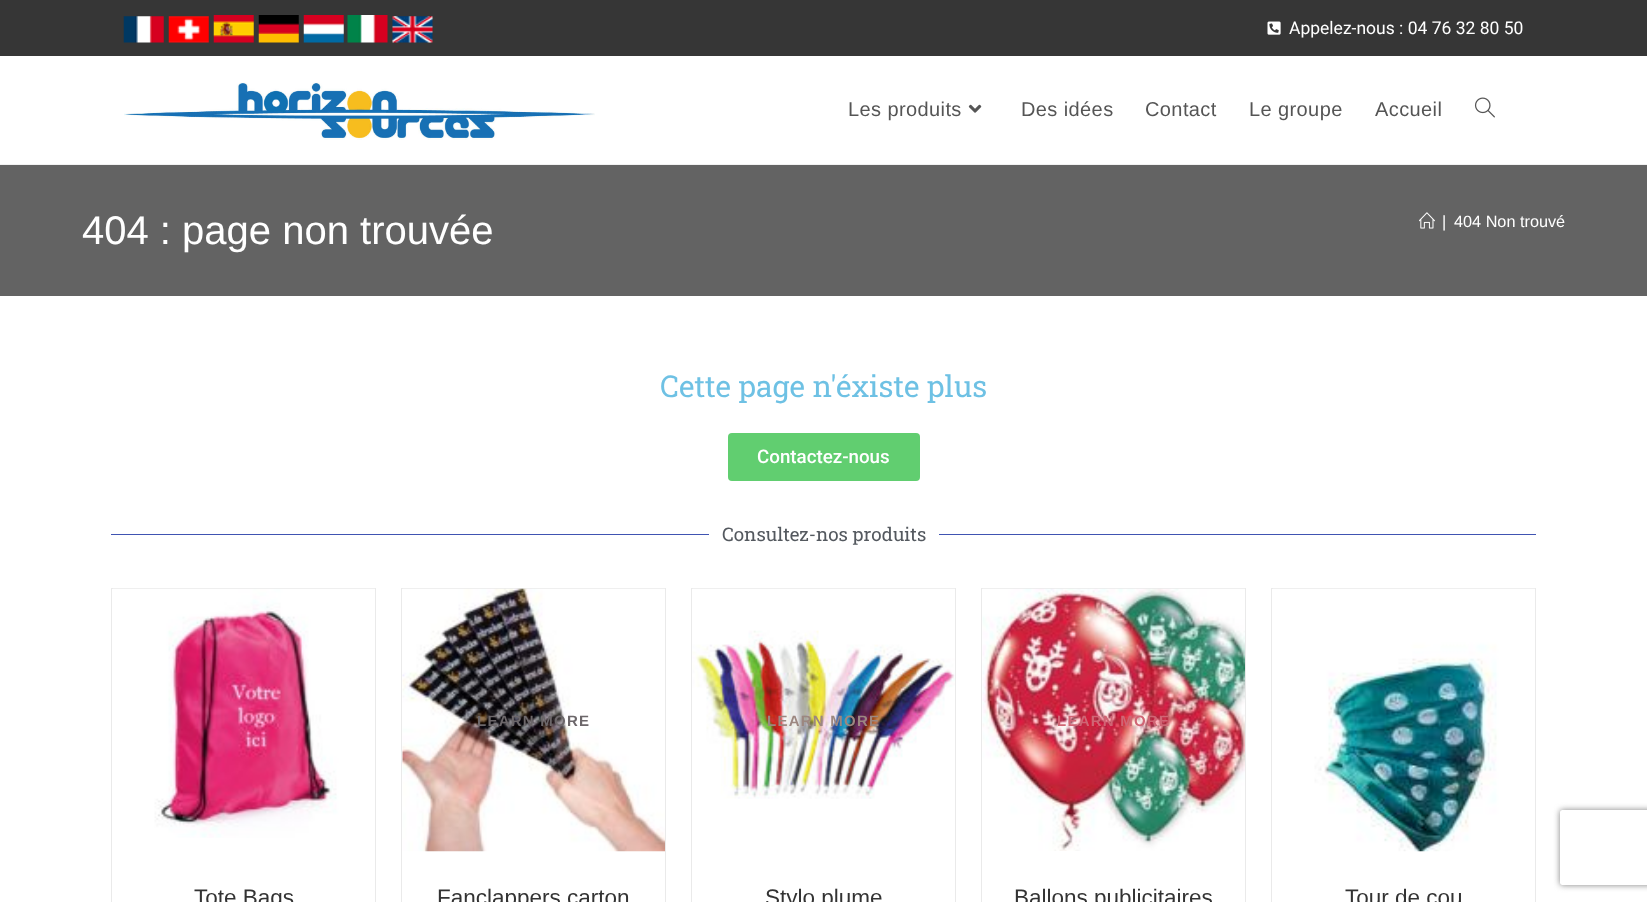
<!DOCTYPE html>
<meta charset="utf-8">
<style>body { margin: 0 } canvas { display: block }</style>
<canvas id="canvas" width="1647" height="902"></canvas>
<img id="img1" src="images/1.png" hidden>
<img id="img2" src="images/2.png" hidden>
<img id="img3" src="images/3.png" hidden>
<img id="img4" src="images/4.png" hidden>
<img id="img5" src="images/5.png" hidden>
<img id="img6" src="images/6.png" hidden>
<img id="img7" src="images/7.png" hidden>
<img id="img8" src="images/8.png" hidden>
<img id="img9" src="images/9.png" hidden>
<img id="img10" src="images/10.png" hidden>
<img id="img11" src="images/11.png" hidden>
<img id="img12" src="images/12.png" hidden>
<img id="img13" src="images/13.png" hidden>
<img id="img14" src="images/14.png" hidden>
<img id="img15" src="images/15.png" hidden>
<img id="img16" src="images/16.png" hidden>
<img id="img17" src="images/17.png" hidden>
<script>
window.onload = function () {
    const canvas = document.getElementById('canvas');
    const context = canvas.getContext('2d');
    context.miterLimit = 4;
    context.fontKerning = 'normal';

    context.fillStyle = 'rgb(255, 255, 255)';
    context.fillRect(0, 0, 1647, 902);
    context.fillStyle = 'rgb(241, 241, 241)';
    context.fillRect(0, 164, 1647, 1);
    context.fillStyle = 'rgb(54, 54, 54)';
    context.fillRect(0, 0, 1647, 56);
    context.drawImage(document.getElementById('img1'), 123, 16, 41, 27);
    context.drawImage(document.getElementById('img2'), 168, 16, 41, 27);
    context.drawImage(document.getElementById('img3'), 213, 15, 41, 28);
    context.drawImage(document.getElementById('img4'), 258, 15, 41, 28);
    context.drawImage(document.getElementById('img5'), 303, 15, 41, 28);
    context.drawImage(document.getElementById('img6'), 347, 15, 41, 28);
    context.drawImage(document.getElementById('img7'), 392, 16, 41, 27);
    context.drawImage(document.getElementById('img8'), 1267, 21, 14, 14);
    context.drawImage(document.getElementById('img9'), 124, 82, 471, 58);
    context.drawImage(document.getElementById('img10'), 968, 104, 14, 9);
    context.drawImage(document.getElementById('img11'), 1474, 97, 21, 21);
    context.fillStyle = 'rgb(99, 99, 99)';
    context.fillRect(0, 165, 1647, 131);
    context.drawImage(document.getElementById('img12'), 1419, 212, 16, 17);
    context.fillStyle = 'rgb(97, 206, 112)';
    context.beginPath();
    context.roundRect(728, 433, 192, 48, 4);
    context.fill();
    context.fillStyle = 'rgb(64, 84, 178)';
    context.fillRect(111, 534, 598, 1);
    context.fillRect(939, 534, 597, 1);
    context.strokeStyle = 'rgb(234, 234, 234)';
    context.strokeRect(111.5, 588.5, 264, 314);
    context.drawImage(document.getElementById('img13'), 113, 588, 262, 250);
    context.strokeRect(401.5, 588.5, 264, 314);
    context.drawImage(document.getElementById('img14'), 402, 588, 263, 264);
    context.strokeRect(691.5, 588.5, 264, 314);
    context.drawImage(document.getElementById('img15'), 692, 588, 263, 211);
    context.strokeRect(981.5, 588.5, 264, 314);
    context.drawImage(document.getElementById('img16'), 982, 588, 263, 263);
    context.strokeRect(1271.5, 588.5, 264, 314);
    context.drawImage(document.getElementById('img17'), 1273, 588, 262, 264);
    context.save();
    context.beginPath();
    context.moveTo(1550, 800);
    context.lineTo(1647, 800);
    context.lineTo(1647, 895);
    context.lineTo(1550, 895);
    context.closePath();
    context.moveTo(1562.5, 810);
    context.lineTo(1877.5, 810);
    context.bezierCurveTo(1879, 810, 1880, 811, 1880, 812.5);
    context.lineTo(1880, 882.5);
    context.bezierCurveTo(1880, 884, 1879, 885, 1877.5, 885);
    context.lineTo(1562.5, 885);
    context.bezierCurveTo(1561, 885, 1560, 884, 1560, 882.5);
    context.lineTo(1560, 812.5);
    context.bezierCurveTo(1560, 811, 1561, 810, 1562.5, 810);
    context.closePath();
    context.clip('evenodd');
    context.fillStyle = 'rgb(128, 128, 128)';
    context.filter = 'blur(3px)';
    context.beginPath();
    context.roundRect(1560, 810, 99, 75, 2.5);
    context.fill();
    context.filter = 'none';
    context.restore();
    context.font = '17.5px Roboto';
    context.fillStyle = 'rgb(255, 255, 255)';
    context.fillText('Appelez-nous : 04 76 32 80 50', 1289, 34);
    context.letterSpacing = '0.4px';
    context.font = '20px Liberation Sans';
    context.fillStyle = 'rgb(85, 85, 85)';
    context.fillText('Les produits', 848, 116);
    context.fillText('Des idées', 1021, 116);
    context.fillText('Contact', 1145, 116);
    context.fillText('Le groupe', 1249, 116);
    context.fillText('Accueil', 1375, 116);
    context.letterSpacing = '0px';
    context.font = '40px Liberation Sans';
    context.fillStyle = 'rgb(255, 255, 255)';
    context.fillText('404 : page non trouvée', 82, 244);
    context.font = '16.25px Liberation Sans';
    context.fillText('|', 1442, 227);
    context.fillText('404 Non trouvé', 1454, 227);
    context.font = '30px Roboto Slab';
    context.fillStyle = 'rgb(110, 193, 228)';
    context.fillText('Cette page n\'éxiste plus', 660, 397);
    context.font = '500 18.75px Roboto';
    context.fillStyle = 'rgb(255, 255, 255)';
    context.fillText('Contactez-nous', 757, 463);
    context.font = '18.75px Roboto Slab';
    context.fillStyle = 'rgb(84, 89, 95)';
    context.fillText('Consultez-nos produits', 722, 541);
    context.font = '22.5px Liberation Sans';
    context.fillStyle = 'rgb(51, 51, 51)';
    context.fillText('Tote Bags', 194, 905);
    context.letterSpacing = '1.25px';
    context.font = 'bold 15px Liberation Sans';
    context.fillStyle = 'rgb(108, 103, 106)';
    context.fillText('LEARN MORE', 477, 726);
    context.letterSpacing = '0px';
    context.font = '22.5px Liberation Sans';
    context.fillStyle = 'rgb(51, 51, 51)';
    context.fillText('Fanclappers carton', 437, 905);
    context.letterSpacing = '1.25px';
    context.font = 'bold 15px Liberation Sans';
    context.fillStyle = 'rgb(156, 135, 128)';
    context.fillText('LEARN MORE', 767, 726);
    context.letterSpacing = '0px';
    context.font = '22.5px Liberation Sans';
    context.fillStyle = 'rgb(51, 51, 51)';
    context.fillText('Stylo plume', 765, 905);
    context.letterSpacing = '1.25px';
    context.font = 'bold 15px Liberation Sans';
    context.fillStyle = 'rgb(208, 101, 116)';
    context.fillText('LEARN MORE', 1057, 726);
    context.letterSpacing = '0px';
    context.font = '22.5px Liberation Sans';
    context.fillStyle = 'rgb(51, 51, 51)';
    context.fillText('Ballons publicitaires', 1014, 905);
    context.fillText('Tour de cou', 1345, 905);
};
</script>
